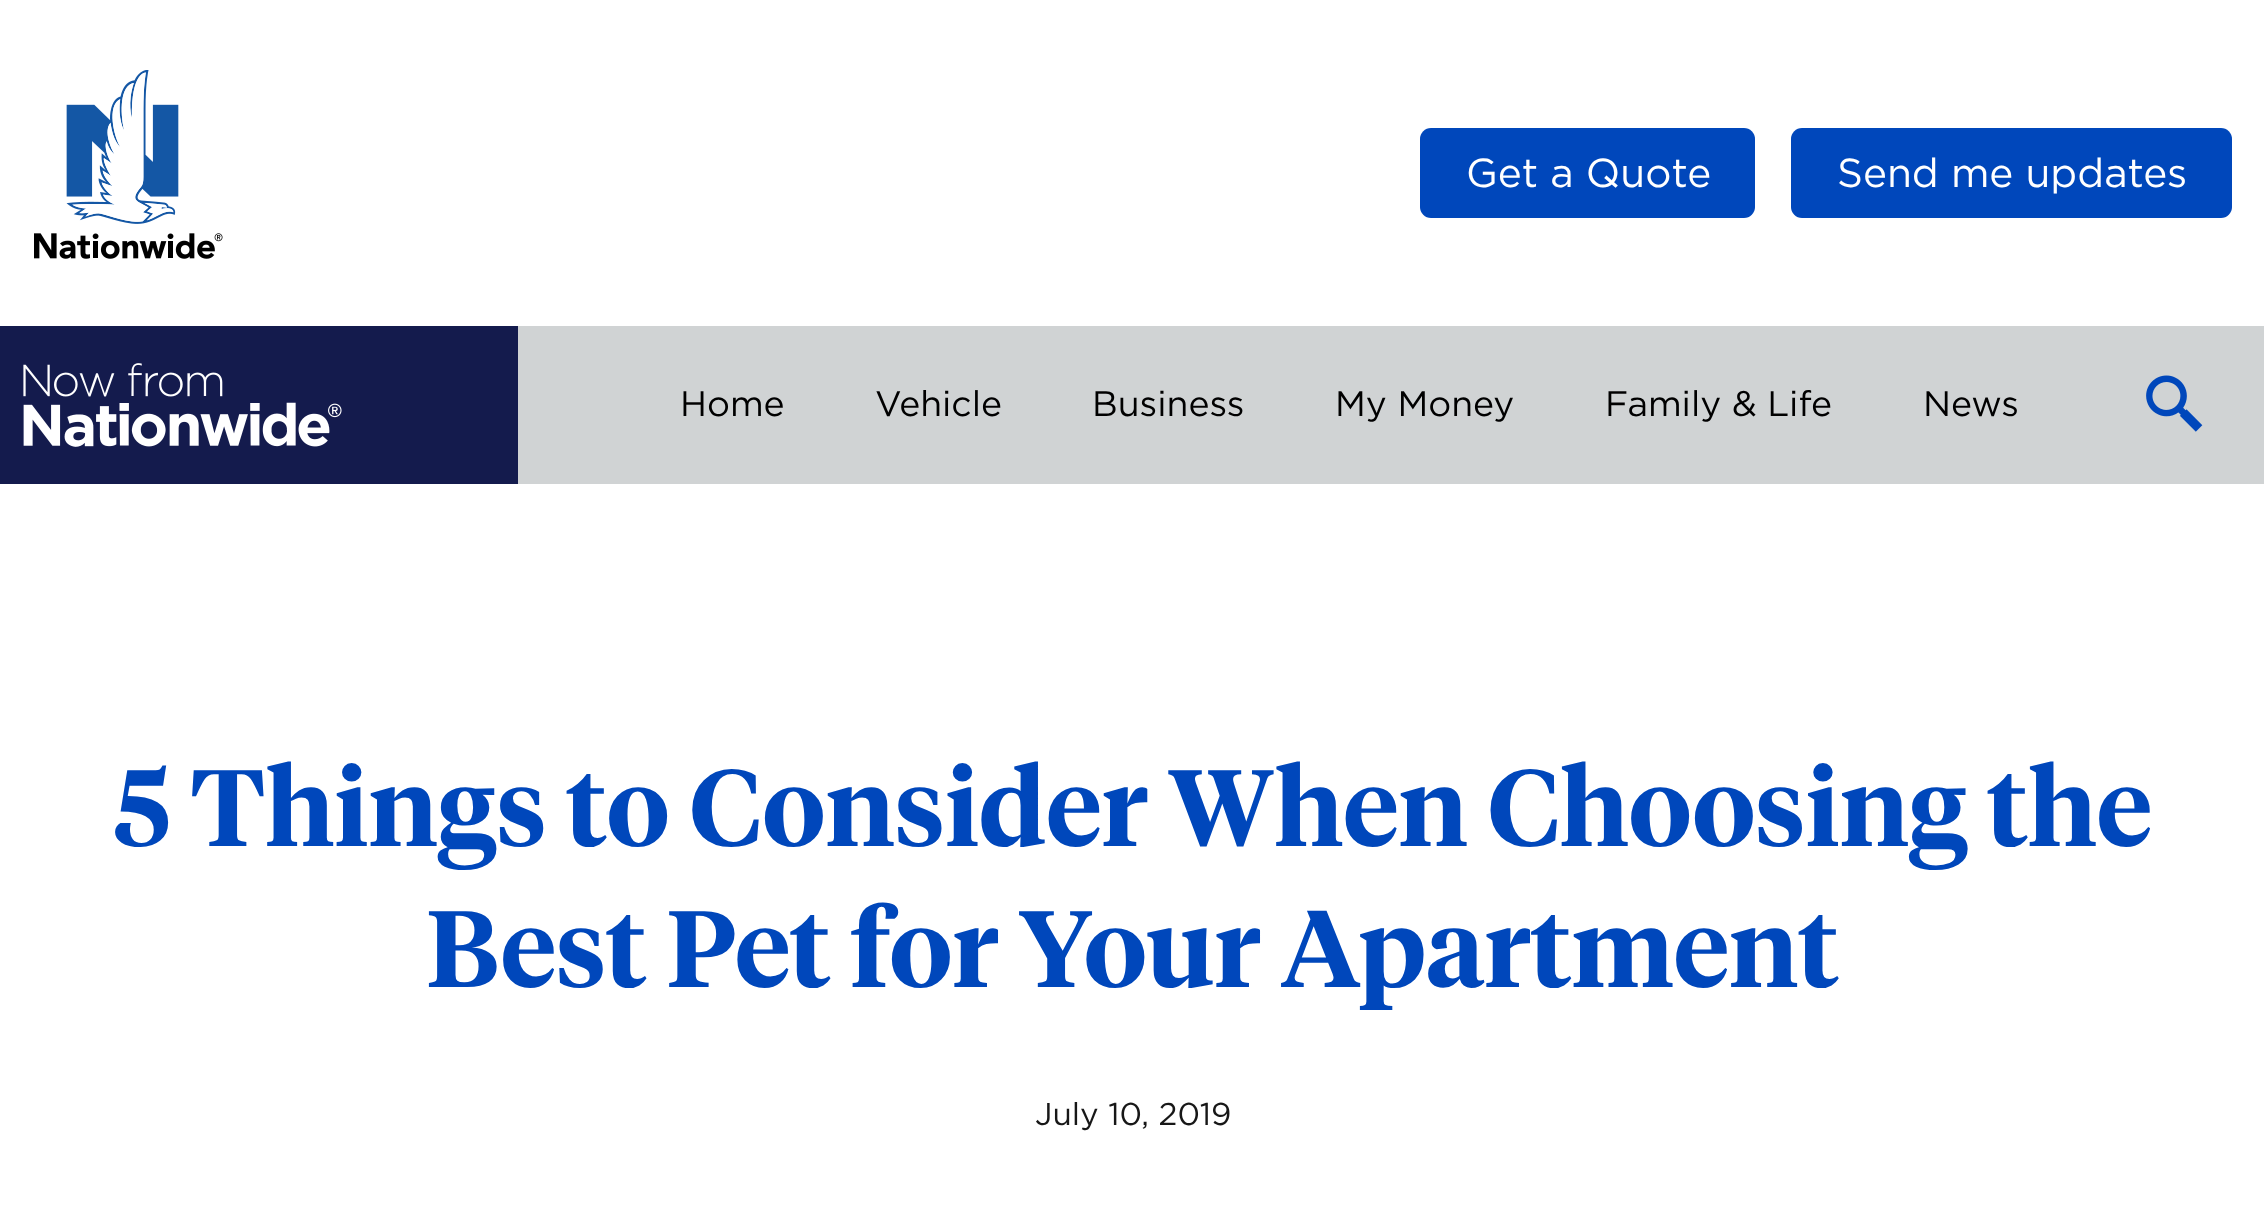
<!DOCTYPE html>
<meta charset="utf-8">
<style>body { margin: 0 } canvas { display: block }</style>
<canvas id="canvas" width="2264" height="1229"></canvas>
<img id="img1" src="images/1.png" hidden>
<img id="img2" src="images/2.png" hidden>
<img id="img3" src="images/3.png" hidden>
<script>
window.onload = function () {
    const canvas = document.getElementById('canvas');
    const context = canvas.getContext('2d');
    context.miterLimit = 4;
    context.fontKerning = 'normal';

    context.fillStyle = 'rgb(255, 255, 255)';
    context.fillRect(0, 0, 2264, 1229);
    context.drawImage(document.getElementById('img1'), 34, 70, 189, 189);
    context.fillStyle = 'rgb(0, 71, 187)';
    context.beginPath();
    context.roundRect(1420, 128, 335, 90, 11);
    context.fill();
    context.beginPath();
    context.roundRect(1791, 128, 441, 90, 11);
    context.fill();
    context.fillStyle = 'rgb(208, 211, 212)';
    context.fillRect(518, 326, 1746, 158);
    context.fillStyle = 'rgb(20, 27, 77)';
    context.fillRect(0, 326, 518, 158);
    context.drawImage(document.getElementById('img2'), 23, 363, 319, 84);
    context.drawImage(document.getElementById('img3'), 2146, 375, 57, 57);
    context.font = '300 40.5px "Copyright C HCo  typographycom"';
    context.fillStyle = 'rgb(255, 255, 255)';
    context.fillText('Get a Quote', 1466, 187);
    context.fillText('Send me updates', 1837, 187);
    context.font = '300 35.5px "Copyright C HCo  typographycom"';
    context.fillStyle = 'rgb(0, 0, 0)';
    context.fillText('Home', 680, 416);
    context.fillText('Vehicle', 875, 416);
    context.fillText('Business', 1092, 416);
    context.fillText('My Money', 1335, 416);
    context.fillText('Family & Life', 1605, 416);
    context.fillText('News', 1923, 416);
    context.font = '600 108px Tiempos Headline';
    context.fillStyle = 'rgb(0, 71, 187)';
    context.fillText('5 Things to Consider When Choosing the', 114, 846);
    context.fillText('Best Pet for Your Apartment', 426, 987);
    context.font = '300 31.5px "Copyright C HCo  typographycom"';
    context.fillStyle = 'rgb(23, 23, 23)';
    context.fillText('July 10, 2019', 1035, 1125);
};
</script>
